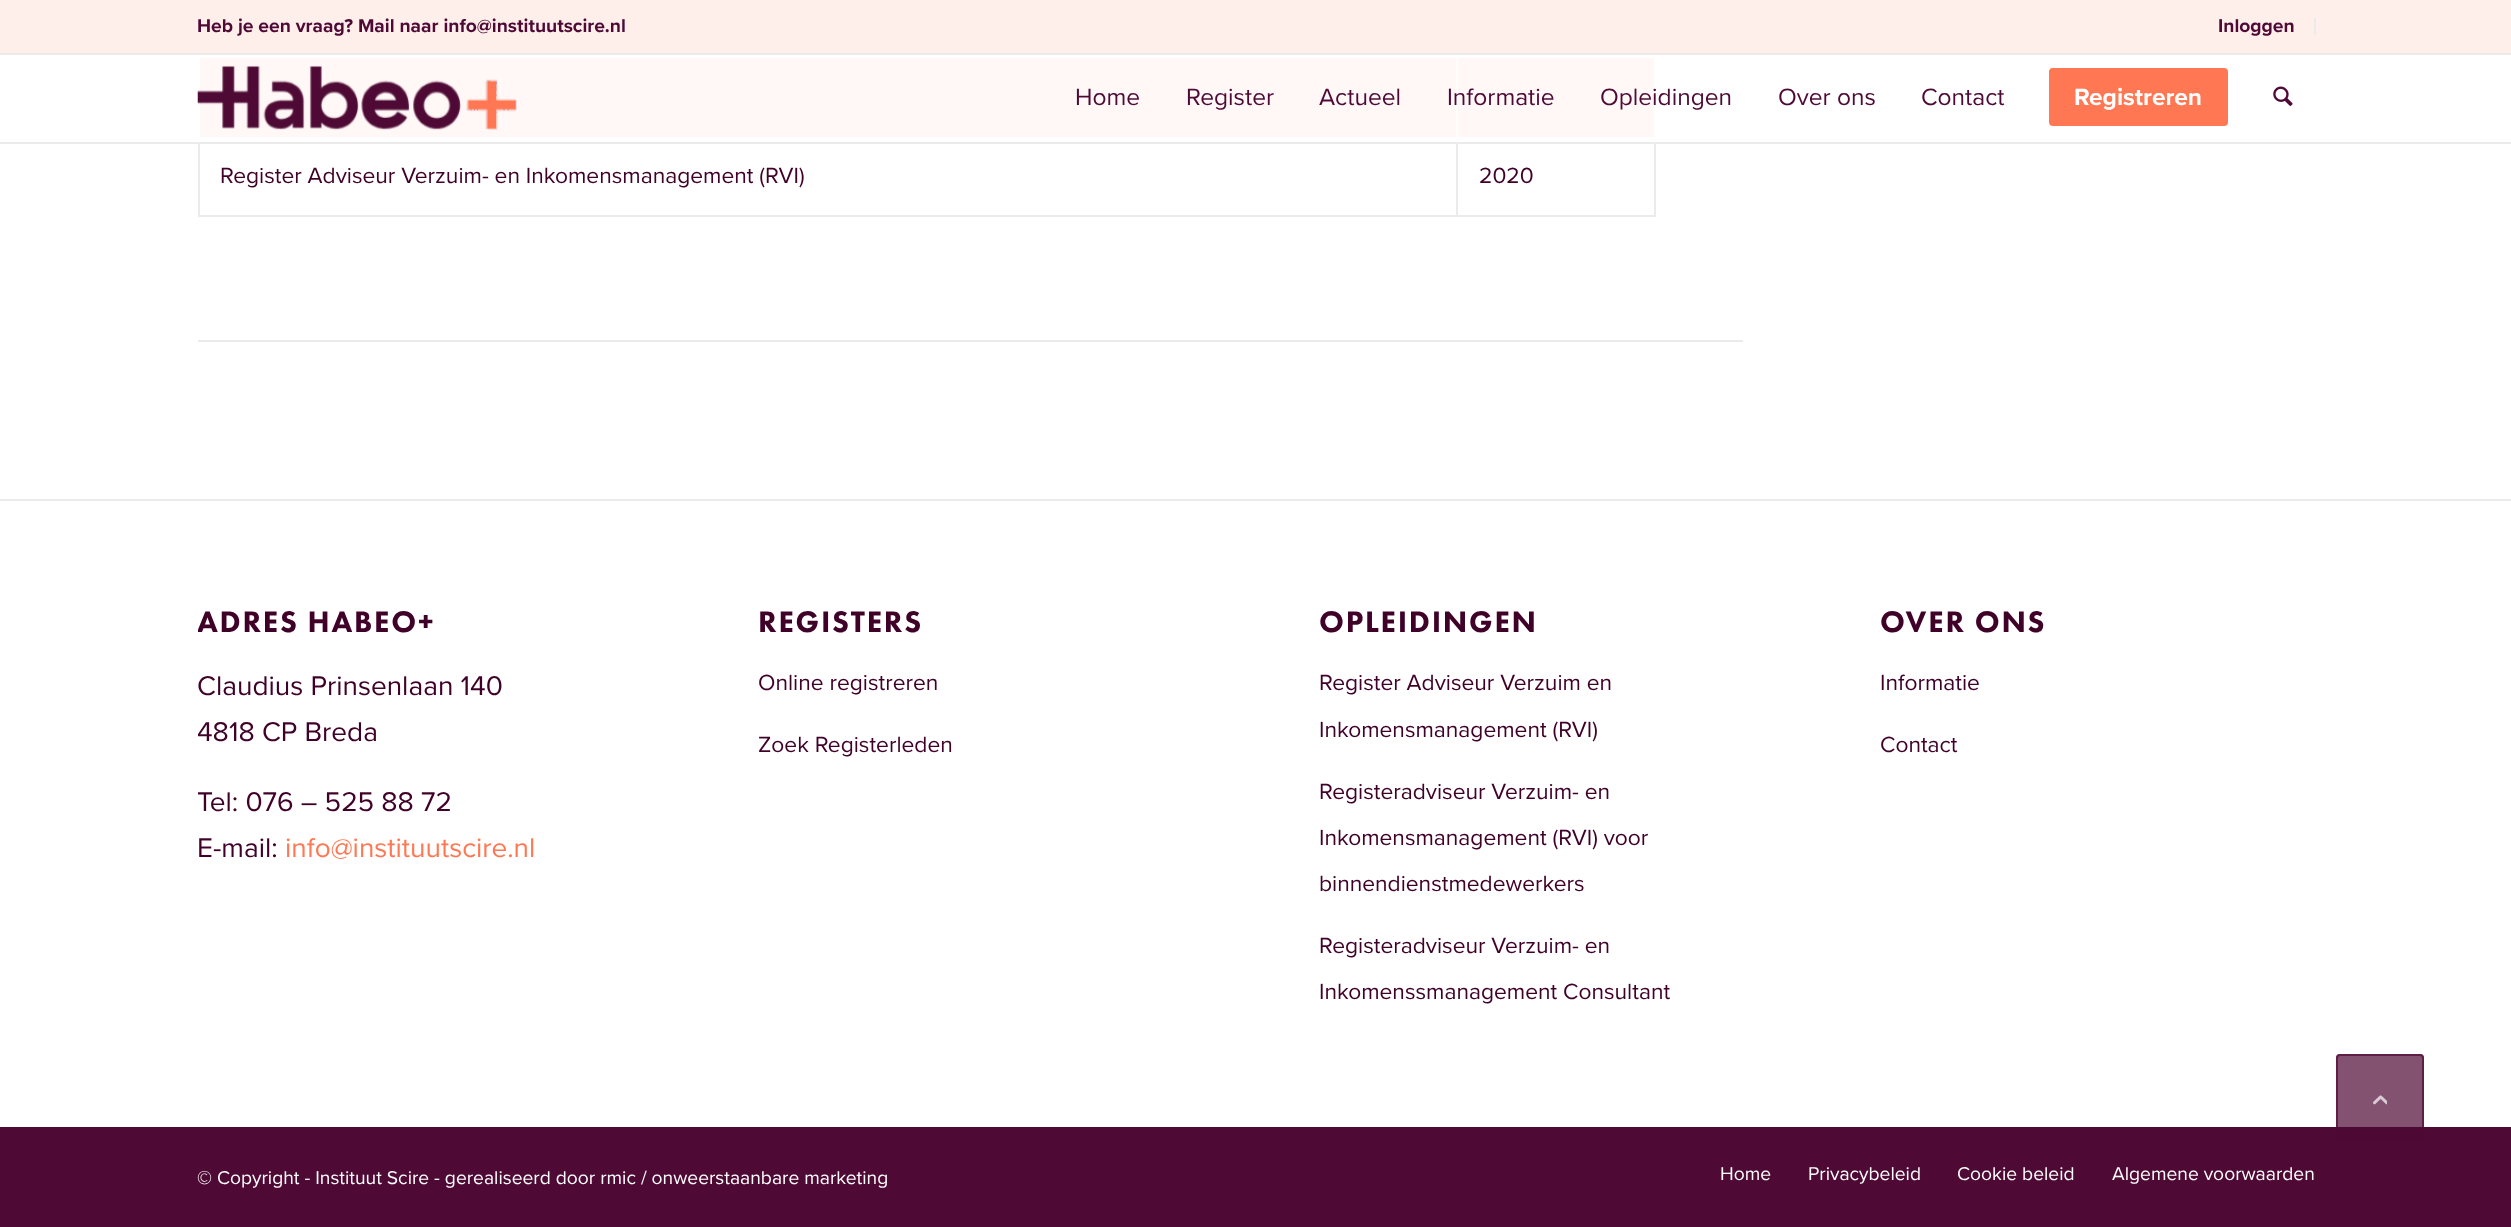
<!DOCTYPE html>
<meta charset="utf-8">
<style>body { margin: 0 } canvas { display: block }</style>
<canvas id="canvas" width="2511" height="1227"></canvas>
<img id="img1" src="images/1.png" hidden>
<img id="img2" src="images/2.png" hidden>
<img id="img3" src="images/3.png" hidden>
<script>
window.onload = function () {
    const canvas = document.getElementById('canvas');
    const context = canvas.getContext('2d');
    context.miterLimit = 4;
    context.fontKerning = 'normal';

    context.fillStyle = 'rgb(255, 255, 255)';
    context.fillRect(0, 0, 2511, 1227);
    context.fillStyle = 'rgb(255, 239, 234)';
    context.fillRect(0, 0, 2511, 53);
    context.fillStyle = 'rgb(235, 235, 235)';
    context.fillRect(0, 53, 2511, 2);
    context.fillRect(2314, 18, 2, 17);
    context.fillRect(1654, 137, 2, 80);
    context.fillRect(1456, 215, 200, 2);
    context.fillRect(1456, 137, 2, 80);
    context.fillStyle = 'rgb(255, 248, 246)';
    context.fillRect(200, 58, 1454, 79);
    context.fillStyle = 'rgb(254, 254, 254)';
    context.fillRect(1456, 56, 2, 88);
    context.fillStyle = 'rgb(235, 235, 235)';
    context.fillRect(198, 215, 1260, 2);
    context.fillRect(198, 137, 2, 80);
    context.fillStyle = 'rgb(254, 254, 254)';
    context.fillRect(198, 137, 2, 7);
    context.fillRect(1654, 137, 2, 7);
    context.fillStyle = 'rgb(235, 235, 235)';
    context.fillRect(0, 142, 2511, 2);
    context.drawImage(document.getElementById('img1'), 197, 65, 320, 65);
    context.fillStyle = 'rgb(255, 119, 83)';
    context.beginPath();
    context.roundRect(2051, 70, 175, 54, 2);
    context.fill();
    context.strokeStyle = 'rgb(255, 119, 83)';
    context.lineWidth = 4;
    context.stroke();
    context.drawImage(document.getElementById('img2'), 2273, 86, 20, 20);
    context.fillStyle = 'rgb(235, 235, 235)';
    context.fillRect(198, 340, 1545, 2);
    context.fillRect(0, 499, 2511, 2);
    context.fillStyle = 'rgb(78, 9, 53)';
    context.fillRect(0, 1127, 2511, 100);
    context.fillStyle = 'rgba(78, 9, 53, 0.7)';
    context.beginPath();
    context.roundRect(2336, 1054, 88, 87, 4);
    context.fill();
    context.beginPath();
    context.roundRect(2337, 1055, 86, 85, 3);
    context.strokeStyle = 'rgba(78, 9, 53, 0.7)';
    context.lineWidth = 2;
    context.stroke();
    context.drawImage(document.getElementById('img3'), 2373, 1095, 14, 10);
    context.font = 'bold 19.25px Proxima Nova';
    context.fillStyle = 'rgb(78, 9, 53)';
    context.fillText('Heb je een vraag? Mail naar info@instituutscire.nl', 197, 32);
    context.fillText('Inloggen', 2218, 32);
    context.font = '24.5px Proxima Nova';
    context.fillText('Home', 1075, 105);
    context.fillText('Register', 1186, 105);
    context.fillText('Actueel', 1319, 105);
    context.fillText('Informatie', 1447, 105);
    context.fillText('Opleidingen', 1600, 105);
    context.fillText('Over ons', 1778, 105);
    context.fillText('Contact', 1921, 105);
    context.font = 'bold 24.5px Proxima Nova';
    context.fillStyle = 'rgb(255, 255, 255)';
    context.fillText('Registreren', 2074, 105);
    context.font = '22.75px Proxima Nova';
    context.fillStyle = 'rgb(64, 1, 41)';
    context.fillText('Register Adviseur Verzuim- en Inkomensmanagement (RVI)', 220, 183);
    context.fillText('2020', 1479, 183);
    context.save();
    context.beginPath();
    context.rect(198, 579, 434, 317);
    context.clip();
    context.letterSpacing = '1.75px';
    context.font = '900 30.75px Futura PT';
    context.fillText('ADRES HABEO+', 197, 632);
    context.restore();
    context.font = '28px Proxima Nova';
    context.fillText('Claudius Prinsenlaan 140', 197, 695);
    context.save();
    context.beginPath();
    context.rect(198, 579, 434, 317);
    context.clip();
    context.fillText('4818 CP Breda', 197, 741);
    context.fillText('Tel: 076 – 525 88 72', 197, 811);
    context.restore();
    context.fillText('E-mail:', 197, 857);
    context.fillStyle = 'rgb(255, 120, 83)';
    context.fillText('info@instituutscire.nl', 285, 857);
    context.letterSpacing = '1.75px';
    context.font = '900 30.75px Futura PT';
    context.fillStyle = 'rgb(64, 1, 41)';
    context.fillText('REGISTERS', 758, 632);
    context.letterSpacing = '0px';
    context.font = '22.75px Proxima Nova';
    context.fillText('Online registreren', 758, 690);
    context.fillText('Zoek Registerleden', 758, 752);
    context.letterSpacing = '1.75px';
    context.font = '900 30.75px Futura PT';
    context.fillText('OPLEIDINGEN', 1319, 632);
    context.letterSpacing = '0px';
    context.font = '22.75px Proxima Nova';
    context.fillText('Register Adviseur Verzuim en', 1319, 690);
    context.fillText('Inkomensmanagement (RVI)', 1319, 737);
    context.fillText('Registeradviseur Verzuim- en', 1319, 799);
    context.fillText('Inkomensmanagement (RVI) voor', 1319, 845);
    context.fillText('binnendienstmedewerkers', 1319, 891);
    context.fillText('Registeradviseur Verzuim- en', 1319, 953);
    context.fillText('Inkomenssmanagement Consultant', 1319, 999);
    context.letterSpacing = '1.75px';
    context.font = '900 30.75px Futura PT';
    context.fillText('OVER ONS', 1880, 632);
    context.letterSpacing = '0px';
    context.font = '22.75px Proxima Nova';
    context.fillText('Informatie', 1880, 690);
    context.fillText('Contact', 1880, 752);
    context.font = '19.25px Proxima Nova';
    context.fillStyle = 'rgb(255, 255, 255)';
    context.fillText('© Copyright - Instituut Scire - gerealiseerd door rmic / onweerstaanbare marketing', 197, 1184);
    context.fillText('Home', 1720, 1180);
    context.fillText('Privacybeleid', 1808, 1180);
    context.fillText('Cookie beleid', 1957, 1180);
    context.fillText('Algemene voorwaarden', 2112, 1180);
};
</script>
